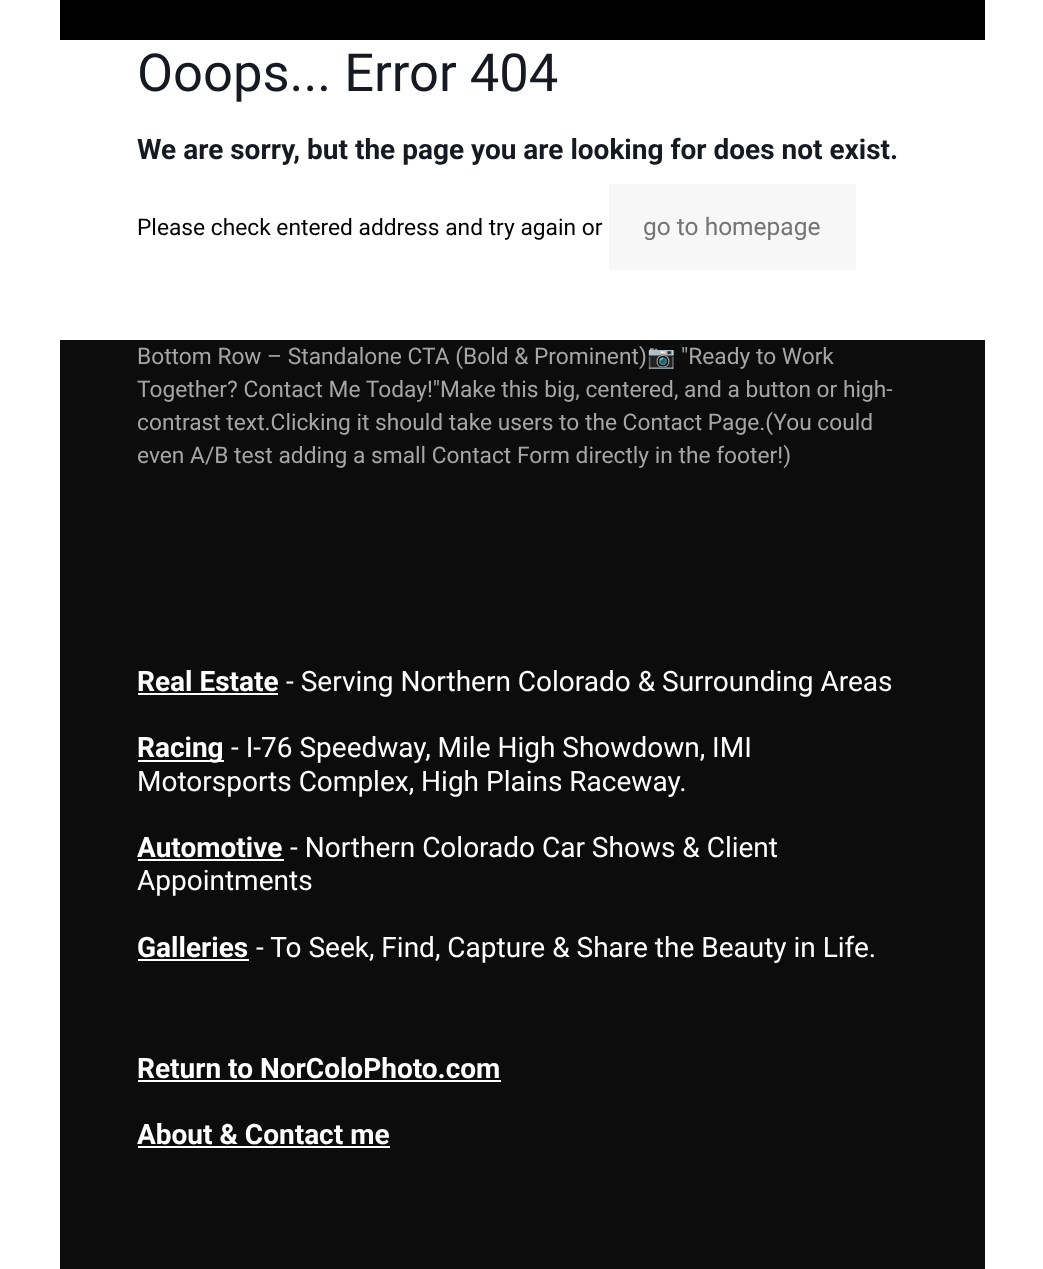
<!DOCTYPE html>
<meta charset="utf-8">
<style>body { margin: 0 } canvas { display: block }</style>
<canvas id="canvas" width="1043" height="1269"></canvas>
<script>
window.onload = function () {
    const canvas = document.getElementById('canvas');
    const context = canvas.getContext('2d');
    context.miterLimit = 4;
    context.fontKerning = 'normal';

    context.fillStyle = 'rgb(255, 255, 255)';
    context.fillRect(0, 0, 1043, 1269);
    context.fillStyle = 'rgb(0, 0, 0)';
    context.fillRect(60, 0, 925, 40);
    context.fillStyle = 'rgb(247, 247, 247)';
    context.fillRect(609, 184, 247, 86);
    context.fillStyle = 'rgb(12, 12, 13)';
    context.fillRect(60, 340, 925, 929);
    context.fillStyle = 'rgb(255, 255, 255)';
    context.fillRect(138, 693, 140, 2);
    context.fillRect(138, 760, 86, 2);
    context.fillRect(138, 859, 146, 2);
    context.fillRect(138, 959, 111, 2);
    context.fillRect(138, 1080, 363, 2);
    context.fillRect(138, 1146, 252, 2);
    context.font = '52.5px Roboto';
    context.fillStyle = 'rgb(22, 25, 34)';
    context.fillText('Ooops... Error 404', 137, 91);
    context.font = 'bold 28px Roboto';
    context.fillText('We are sorry, but the page you are looking for does not exist.', 137, 159);
    context.font = '22.75px Roboto';
    context.fillStyle = 'rgb(0, 0, 0)';
    context.fillText('Please check entered address and try again or', 137, 235);
    context.font = '24.5px Roboto';
    context.fillStyle = 'rgb(116, 116, 116)';
    context.fillText('go to homepage', 643, 235);
    context.font = '22.75px Roboto';
    context.fillStyle = 'rgb(166, 166, 166)';
    context.fillText('Bottom Row – Standalone CTA (Bold & Prominent)', 137, 364);
    context.font = '22.75px Noto Color Emoji';
    context.fillText('📷', 647, 364);
    context.font = '22.75px Roboto';
    context.fillText('"Ready to Work', 681, 364);
    context.fillText('Together? Contact Me Today!"Make this big, centered, and a button or high-', 137, 397);
    context.fillText('contrast text.Clicking it should take users to the Contact Page.(You could', 137, 430);
    context.fillText('even A/B test adding a small Contact Form directly in the footer!)', 137, 463);
    context.font = 'bold 28px Roboto';
    context.fillStyle = 'rgb(255, 255, 255)';
    context.fillText('Real Estate', 137, 691);
    context.font = '28px Roboto';
    context.fillText('- Serving Northern Colorado & Surrounding Areas', 286, 691);
    context.font = 'bold 28px Roboto';
    context.fillText('Racing', 137, 757);
    context.font = '28px Roboto';
    context.fillText('- I-76 Speedway, Mile High Showdown, IMI', 231, 757);
    context.fillText('Motorsports Complex, High Plains Raceway.', 137, 791);
    context.font = 'bold 28px Roboto';
    context.fillText('Automotive', 137, 857);
    context.font = '28px Roboto';
    context.fillText('- Northern Colorado Car Shows & Client', 290, 857);
    context.fillText('Appointments', 137, 890);
    context.font = 'bold 28px Roboto';
    context.fillText('Galleries', 137, 957);
    context.font = '28px Roboto';
    context.fillText('- To Seek, Find, Capture & Share the Beauty in Life.', 256, 957);
    context.font = 'bold 28px Roboto';
    context.fillText('Return to NorColoPhoto.com', 137, 1078);
    context.fillText('About & Contact me', 137, 1144);
};
</script>
